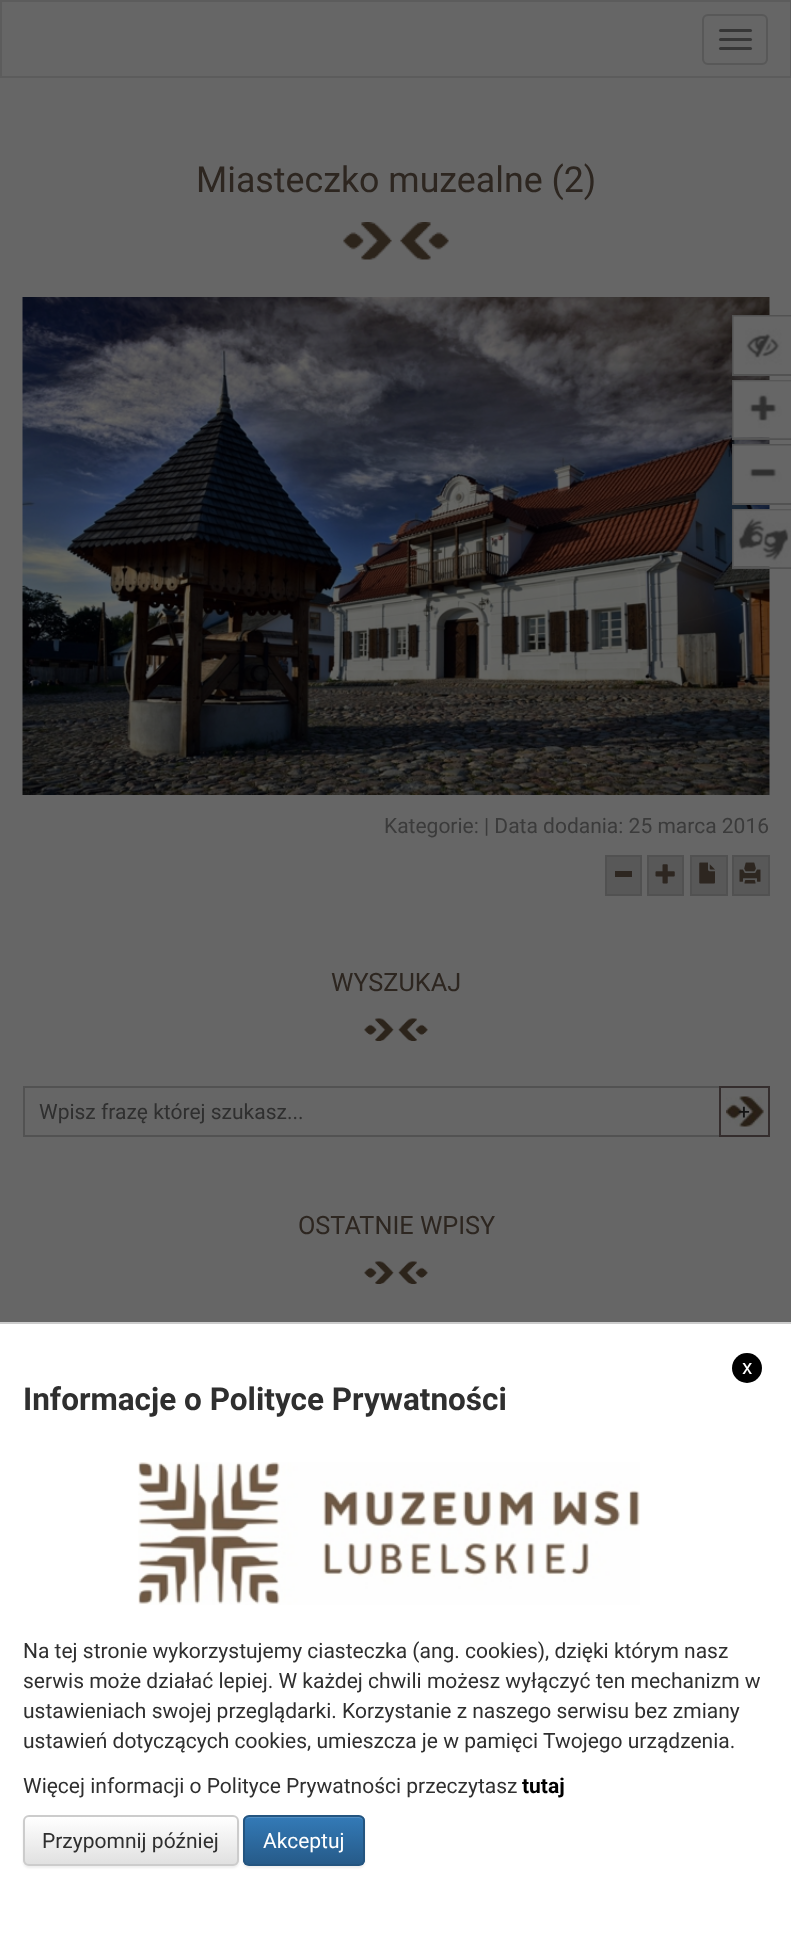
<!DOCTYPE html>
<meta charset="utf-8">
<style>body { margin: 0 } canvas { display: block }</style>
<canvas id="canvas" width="791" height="1941"></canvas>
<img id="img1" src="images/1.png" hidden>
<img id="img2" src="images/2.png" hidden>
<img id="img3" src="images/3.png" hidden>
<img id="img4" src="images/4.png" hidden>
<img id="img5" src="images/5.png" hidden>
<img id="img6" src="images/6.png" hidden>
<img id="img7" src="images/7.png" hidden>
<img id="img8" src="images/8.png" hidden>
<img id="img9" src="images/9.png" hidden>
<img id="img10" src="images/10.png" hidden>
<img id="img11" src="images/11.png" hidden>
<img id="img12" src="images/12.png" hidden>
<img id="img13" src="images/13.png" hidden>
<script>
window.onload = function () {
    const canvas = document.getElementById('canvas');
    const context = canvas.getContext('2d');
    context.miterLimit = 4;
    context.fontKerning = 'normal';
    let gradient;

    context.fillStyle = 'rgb(102, 102, 102)';
    context.fillRect(0, 0, 791, 1941);
    context.strokeStyle = 'rgb(92, 92, 92)';
    context.lineWidth = 2;
    context.strokeRect(1, 1, 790, 76);
    context.beginPath();
    context.roundRect(703, 15, 64, 49, 5);
    context.strokeStyle = 'rgb(88, 88, 88)';
    context.stroke();
    context.fillStyle = 'rgb(54, 54, 54)';
    context.beginPath();
    context.roundRect(719, 29, 33, 3, 1.5);
    context.fill();
    context.beginPath();
    context.roundRect(719, 38, 33, 3, 1.5);
    context.fill();
    context.beginPath();
    context.roundRect(719, 47, 33, 3, 1.5);
    context.fill();
    context.drawImage(document.getElementById('img1'), 343, 222, 106, 38);
    context.drawImage(document.getElementById('img2'), 22, 297, 748, 498);
    context.fillStyle = 'rgb(88, 88, 88)';
    context.beginPath();
    context.rect(606, 856, 35, 39);
    context.fill();
    context.strokeStyle = 'rgb(81, 81, 81)';
    context.stroke();
    context.fillStyle = 'rgb(45, 38, 32)';
    context.fillRect(615, 871, 17, 6);
    context.fillStyle = 'rgb(88, 88, 88)';
    context.beginPath();
    context.rect(648, 856, 35, 39);
    context.fill();
    context.stroke();
    context.drawImage(document.getElementById('img3'), 655, 864, 20, 20);
    context.beginPath();
    context.rect(691, 856, 36, 39);
    context.fill();
    context.stroke();
    context.drawImage(document.getElementById('img4'), 699, 862, 16, 22);
    context.beginPath();
    context.rect(733, 856, 36, 39);
    context.fill();
    context.stroke();
    context.drawImage(document.getElementById('img5'), 739, 862, 22, 22);
    context.drawImage(document.getElementById('img6'), 364, 1018, 64, 23);
    context.strokeStyle = 'rgb(82, 82, 82)';
    context.strokeRect(24, 1087, 745, 49);
    context.drawImage(document.getElementById('img7'), 726, 1096, 38, 31);
    context.strokeStyle = 'rgb(52, 45, 45)';
    context.strokeRect(720, 1087, 49, 49);
    context.drawImage(document.getElementById('img8'), 364, 1261, 64, 23);
    context.fillStyle = 'rgb(102, 102, 102)';
    context.fillRect(734, 373, 36, 1);
    context.fillStyle = 'rgb(82, 82, 82)';
    context.fillRect(732, 315, 59, 2);
    context.fillRect(732, 374, 59, 2);
    context.fillRect(732, 315, 2, 60);
    context.drawImage(document.getElementById('img9'), 733, 316, 58, 58);
    context.fillRect(732, 380, 59, 2);
    context.fillRect(732, 438, 59, 2);
    context.fillRect(732, 380, 2, 60);
    context.drawImage(document.getElementById('img10'), 733, 380, 58, 59);
    context.fillStyle = 'rgb(102, 102, 102)';
    context.fillRect(734, 502, 36, 1);
    context.fillStyle = 'rgb(82, 82, 82)';
    context.fillRect(732, 444, 59, 2);
    context.fillRect(732, 503, 59, 2);
    context.fillRect(732, 444, 2, 60);
    context.drawImage(document.getElementById('img11'), 733, 445, 58, 58);
    context.fillRect(732, 509, 59, 2);
    context.fillRect(732, 567, 59, 2);
    context.fillRect(732, 509, 2, 60);
    context.drawImage(document.getElementById('img12'), 733, 509, 58, 59);
    context.fillStyle = 'rgb(255, 255, 255)';
    context.fillRect(0, 1324, 791, 617);
    context.fillStyle = 'rgb(204, 204, 204)';
    context.fillRect(0, 1322, 791, 2);
    context.fillStyle = 'rgb(0, 0, 0)';
    context.beginPath();
    context.arc(747, 1368, 15, 0, 2 * Math.PI);
    context.fill();
    context.drawImage(document.getElementById('img13'), 138, 1462, 502, 143);
    context.fillStyle = 'rgba(0, 0, 0, 0.07)';
    context.filter = 'blur(1px)';
    context.beginPath();
    context.roundRect(23, 1817, 216, 51, 6);
    context.fill();
    context.filter = 'none';
    context.save();
    context.beginPath();
    context.roundRect(23, 1815, 216, 51, 6);
    context.clip();
    gradient = context.createLinearGradient(131, 1817, 131, 1865);
    gradient.addColorStop(0, 'rgb(255, 255, 255)');
    gradient.addColorStop(1, 'rgb(224, 224, 224)');
    context.fillStyle = gradient;
    context.fillRect(23, 1817, 216, 48);
    context.restore();
    context.beginPath();
    context.roundRect(24, 1816, 214, 49, 5);
    context.strokeStyle = 'rgb(204, 204, 204)';
    context.stroke();
    context.filter = 'blur(1px)';
    context.beginPath();
    context.roundRect(243, 1817, 122, 51, 6);
    context.fill();
    context.filter = 'none';
    context.save();
    context.beginPath();
    context.roundRect(243, 1815, 122, 51, 6);
    context.clip();
    gradient = context.createLinearGradient(304, 1817, 304, 1865);
    gradient.addColorStop(0, 'rgb(51, 122, 183)');
    gradient.addColorStop(1, 'rgb(38, 90, 136)');
    context.fillStyle = gradient;
    context.fillRect(243, 1817, 122, 48);
    context.restore();
    context.fillStyle = 'rgb(82, 142, 194)';
    context.beginPath();
    context.moveTo(249, 1818);
    context.lineTo(358, 1818);
    context.bezierCurveTo(361, 1818, 363, 1820, 363, 1822);
    context.bezierCurveTo(363, 1819, 361, 1817, 358, 1817);
    context.lineTo(250, 1817);
    context.bezierCurveTo(248, 1817, 247, 1818, 246, 1819);
    context.closePath();
    context.fill();
    context.beginPath();
    context.roundRect(244, 1816, 120, 49, 5);
    context.strokeStyle = 'rgb(36, 85, 128)';
    context.stroke();
    context.font = '35.75px Roboto';
    context.fillStyle = 'rgb(45, 38, 32)';
    context.fillText('Miasteczko muzealne (2)', 196, 192);
    context.font = '21px Roboto';
    context.fillStyle = 'rgb(59, 59, 59)';
    context.fillText('Kategorie: | Data dodania: 25 marca 2016', 384, 833);
    context.font = '25.25px Roboto';
    context.fillStyle = 'rgb(45, 38, 32)';
    context.fillText('WYSZUKAJ', 331, 991);
    context.font = '21px Roboto';
    context.fillStyle = 'rgb(47, 47, 47)';
    context.fillText('Wpisz frazę której szukasz...', 39, 1119);
    context.fillStyle = 'rgb(20, 20, 20)';
    context.fillText('+', 738, 1119);
    context.font = '25.25px Roboto';
    context.fillStyle = 'rgb(45, 38, 32)';
    context.fillText('OSTATNIE WPISY', 298, 1234);
    context.font = '21px Roboto';
    context.fillStyle = 'rgb(255, 255, 255)';
    context.fillText('x', 742, 1374);
    context.font = 'bold 31.5px Roboto';
    context.fillStyle = 'rgb(47, 47, 47)';
    context.fillText('Informacje o Polityce Prywatności', 23, 1410);
    context.font = '21px Roboto';
    context.fillText('Na tej stronie wykorzystujemy ciasteczka (ang. cookies), dzięki którym nasz', 23, 1658);
    context.fillText('serwis może działać lepiej. W każdej chwili możesz wyłączyć ten mechanizm w', 23, 1688);
    context.fillText('ustawieniach swojej przeglądarki. Korzystanie z naszego serwisu bez zmiany', 23, 1718);
    context.fillText('ustawień dotyczących cookies, umieszcza je w pamięci Twojego urządzenia.', 23, 1748);
    context.fillText('Więcej informacji o Polityce Prywatności przeczytasz', 23, 1793);
    context.font = 'bold 21px Roboto';
    context.fillStyle = 'rgb(0, 0, 0)';
    context.fillText('tutaj', 522, 1793);
    context.font = '21px Roboto';
    context.fillStyle = 'rgb(47, 47, 47)';
    context.fillText('Przypomnij później', 42, 1848);
    context.fillStyle = 'rgb(255, 255, 255)';
    context.fillText('Akceptuj', 263, 1848);
};
</script>
